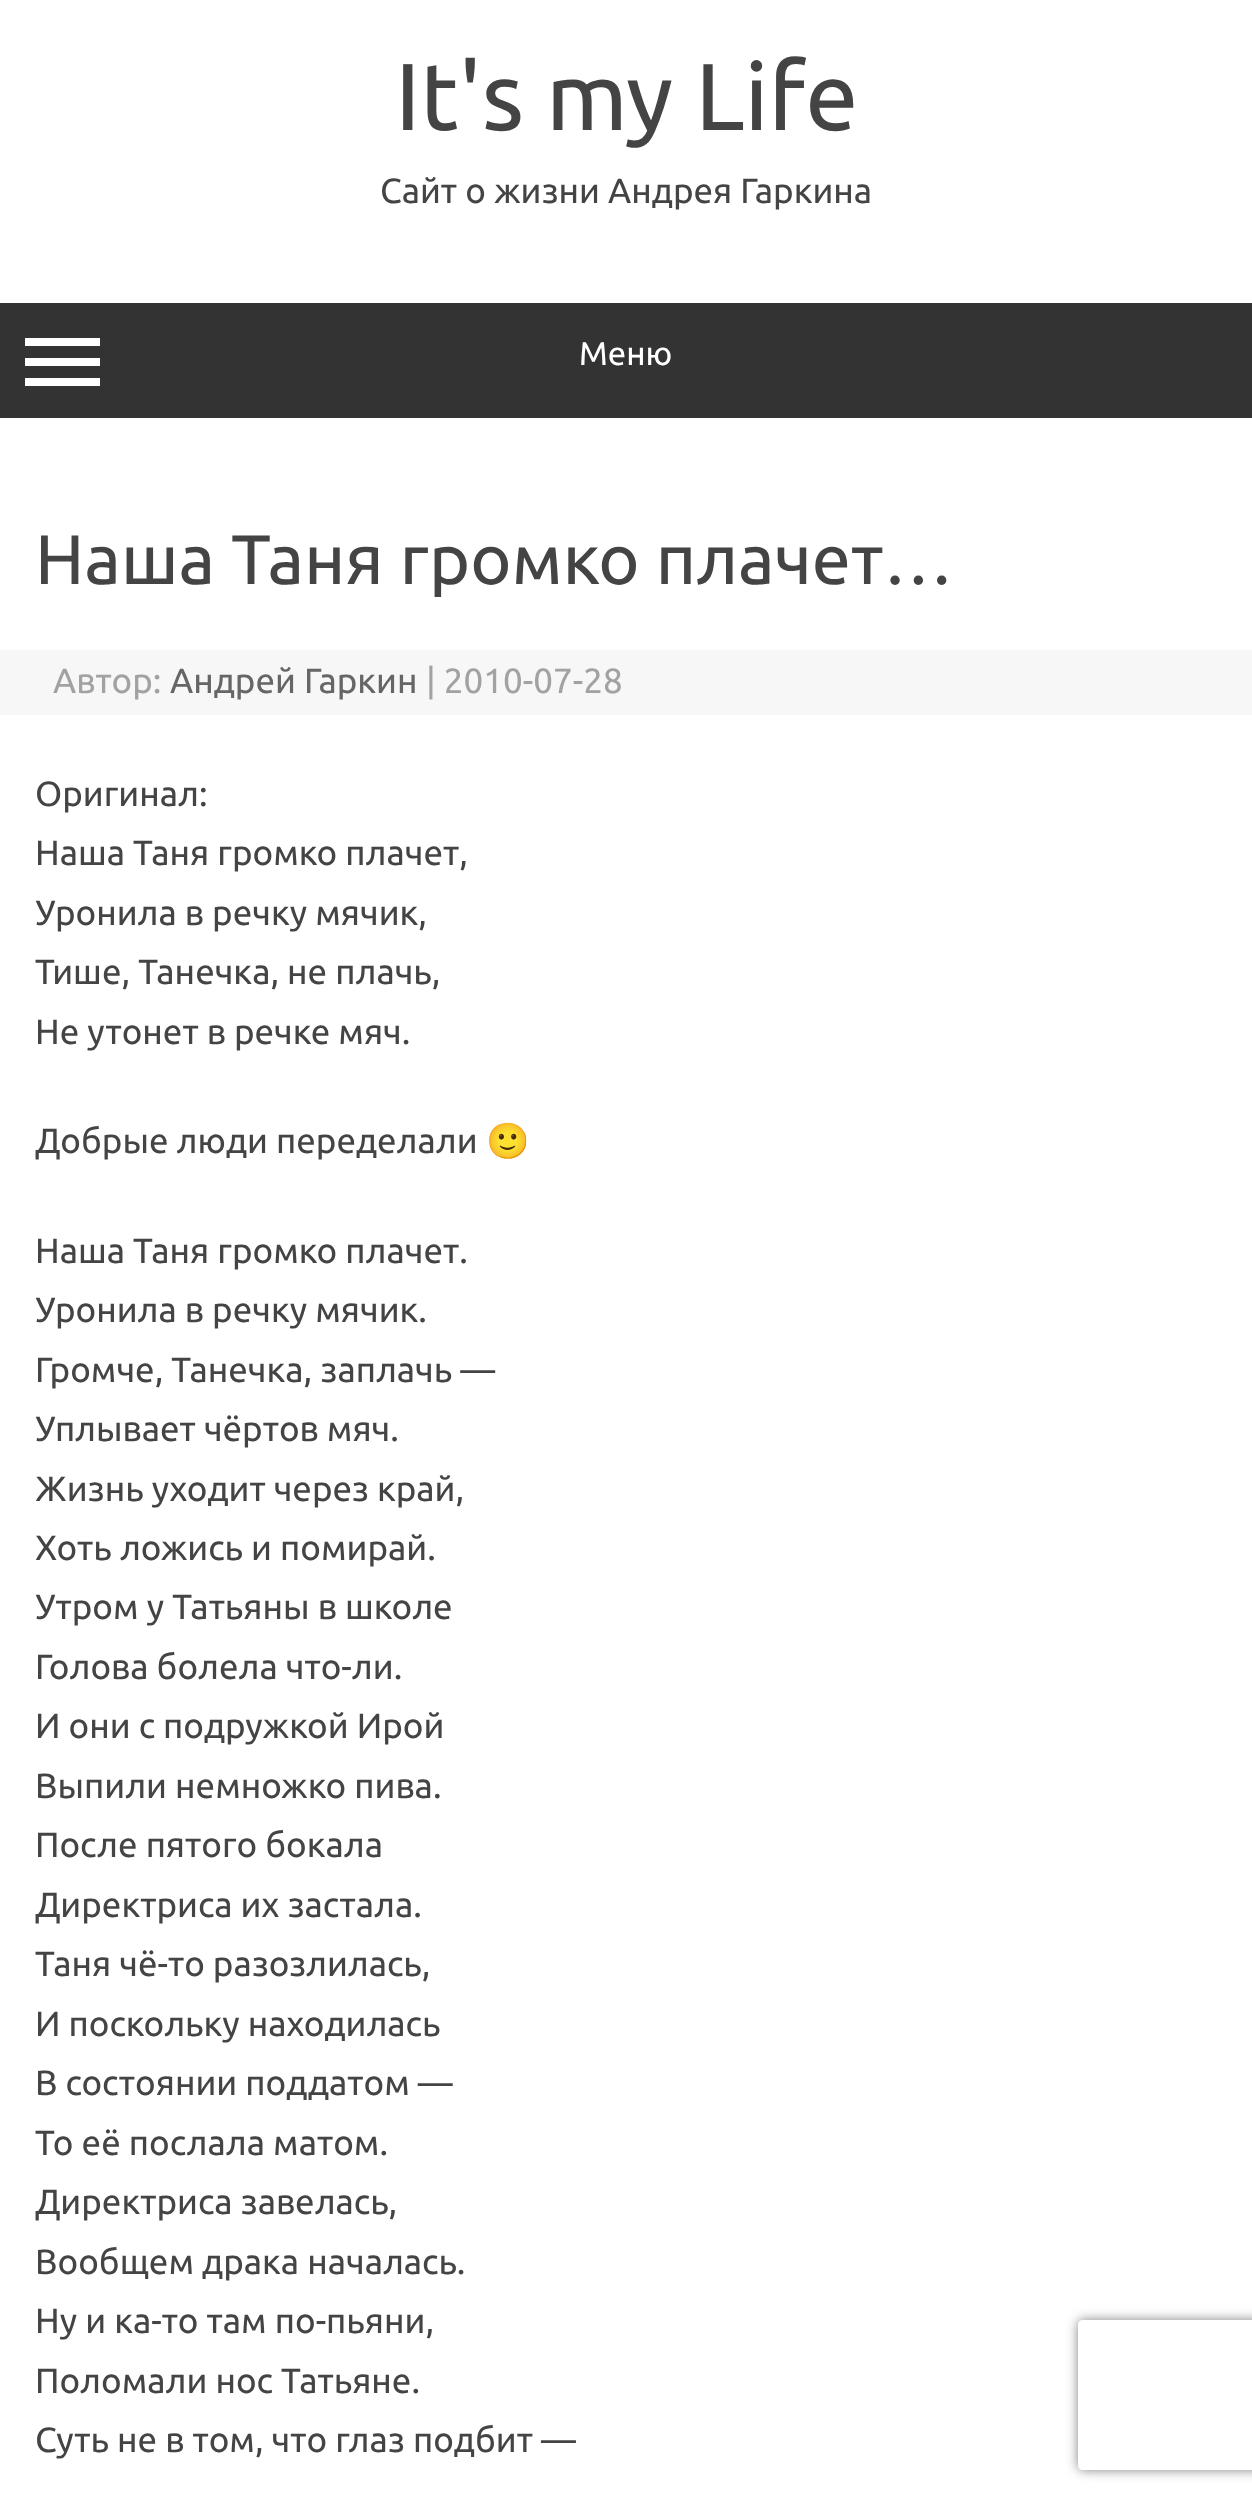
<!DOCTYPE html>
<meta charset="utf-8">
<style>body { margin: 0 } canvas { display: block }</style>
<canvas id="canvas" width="1252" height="2505"></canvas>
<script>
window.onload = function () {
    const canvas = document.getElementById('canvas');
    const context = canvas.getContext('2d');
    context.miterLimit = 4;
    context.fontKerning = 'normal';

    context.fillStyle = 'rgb(255, 255, 255)';
    context.fillRect(0, 0, 1252, 2505);
    context.fillStyle = 'rgb(51, 51, 51)';
    context.fillRect(0, 303, 1252, 115);
    context.fillStyle = 'rgb(255, 255, 255)';
    context.fillRect(25, 338, 75, 8);
    context.fillRect(25, 358, 75, 8);
    context.fillRect(25, 378, 75, 8);
    context.fillStyle = 'rgb(247, 247, 247)';
    context.fillRect(0, 650, 1252, 65);
    context.save();
    context.beginPath();
    context.moveTo(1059, 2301);
    context.lineTo(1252, 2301);
    context.lineTo(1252, 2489);
    context.lineTo(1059, 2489);
    context.closePath();
    context.moveTo(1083, 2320);
    context.lineTo(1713, 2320);
    context.bezierCurveTo(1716, 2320, 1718, 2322, 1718, 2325);
    context.lineTo(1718, 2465);
    context.bezierCurveTo(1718, 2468, 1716, 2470, 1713, 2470);
    context.lineTo(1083, 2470);
    context.bezierCurveTo(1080, 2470, 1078, 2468, 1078, 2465);
    context.lineTo(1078, 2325);
    context.bezierCurveTo(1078, 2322, 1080, 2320, 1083, 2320);
    context.closePath();
    context.clip('evenodd');
    context.fillStyle = 'rgb(128, 128, 128)';
    context.filter = 'blur(6px)';
    context.beginPath();
    context.roundRect(1078, 2320, 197, 150, 5);
    context.fill();
    context.filter = 'none';
    context.restore();
    context.font = '95px Ubuntu';
    context.fillStyle = 'rgb(68, 68, 68)';
    context.fillText('It\'s my Life', 395, 130);
    context.font = '35px Ubuntu';
    context.fillText('Сайт о жизни Андрея Гаркина', 380, 203);
    context.font = '33px Ubuntu';
    context.fillStyle = 'rgb(255, 255, 255)';
    context.fillText('Меню', 579, 365);
    context.font = '70px Ubuntu';
    context.fillStyle = 'rgb(68, 68, 68)';
    context.fillText('Наша Таня громко плачет…', 35, 584);
    context.font = '35px Ubuntu';
    context.fillStyle = 'rgb(162, 162, 162)';
    context.fillText('Автор:', 53, 693);
    context.fillStyle = 'rgb(102, 102, 102)';
    context.fillText('Андрей Гаркин', 170, 693);
    context.fillStyle = 'rgb(162, 162, 162)';
    context.fillText('| 2010-07-28', 426, 693);
    context.fillStyle = 'rgb(68, 68, 68)';
    context.fillText('Оригинал:', 35, 806);
    context.fillText('Наша Таня громко плачет,', 35, 865);
    context.fillText('Уронила в речку мячик,', 35, 925);
    context.fillText('Тише, Танечка, не плачь,', 35, 984);
    context.fillText('Не утонет в речке мяч.', 35, 1044);
    context.fillText('Добрые люди переделали', 35, 1153);
    context.font = '35px Noto Color Emoji';
    context.fillText('🙂', 486, 1153);
    context.font = '35px Ubuntu';
    context.fillText('Наша Таня громко плачет.', 35, 1263);
    context.fillText('Уронила в речку мячик.', 35, 1322);
    context.fillText('Громче, Танечка, заплачь —', 35, 1382);
    context.fillText('Уплывает чёртов мяч.', 35, 1441);
    context.fillText('Жизнь уходит через край,', 35, 1501);
    context.fillText('Хоть ложись и помирай.', 35, 1560);
    context.fillText('Утром у Татьяны в школе', 35, 1619);
    context.fillText('Голова болела что-ли.', 35, 1679);
    context.fillText('И они с подружкой Ирой', 35, 1738);
    context.fillText('Выпили немножко пива.', 35, 1798);
    context.fillText('После пятого бокала', 35, 1857);
    context.fillText('Директриса их застала.', 35, 1917);
    context.fillText('Таня чё-то разозлилась,', 35, 1976);
    context.fillText('И поскольку находилась', 35, 2036);
    context.fillText('В состоянии поддатом —', 35, 2095);
    context.fillText('То её послала матом.', 35, 2155);
    context.fillText('Директриса завелась,', 35, 2214);
    context.fillText('Вообщем драка началась.', 35, 2274);
    context.fillText('Ну и ка-то там по-пьяни,', 35, 2333);
    context.fillText('Поломали нос Татьяне.', 35, 2393);
    context.fillText('Суть не в том, что глаз подбит —', 35, 2452);
};
</script>
